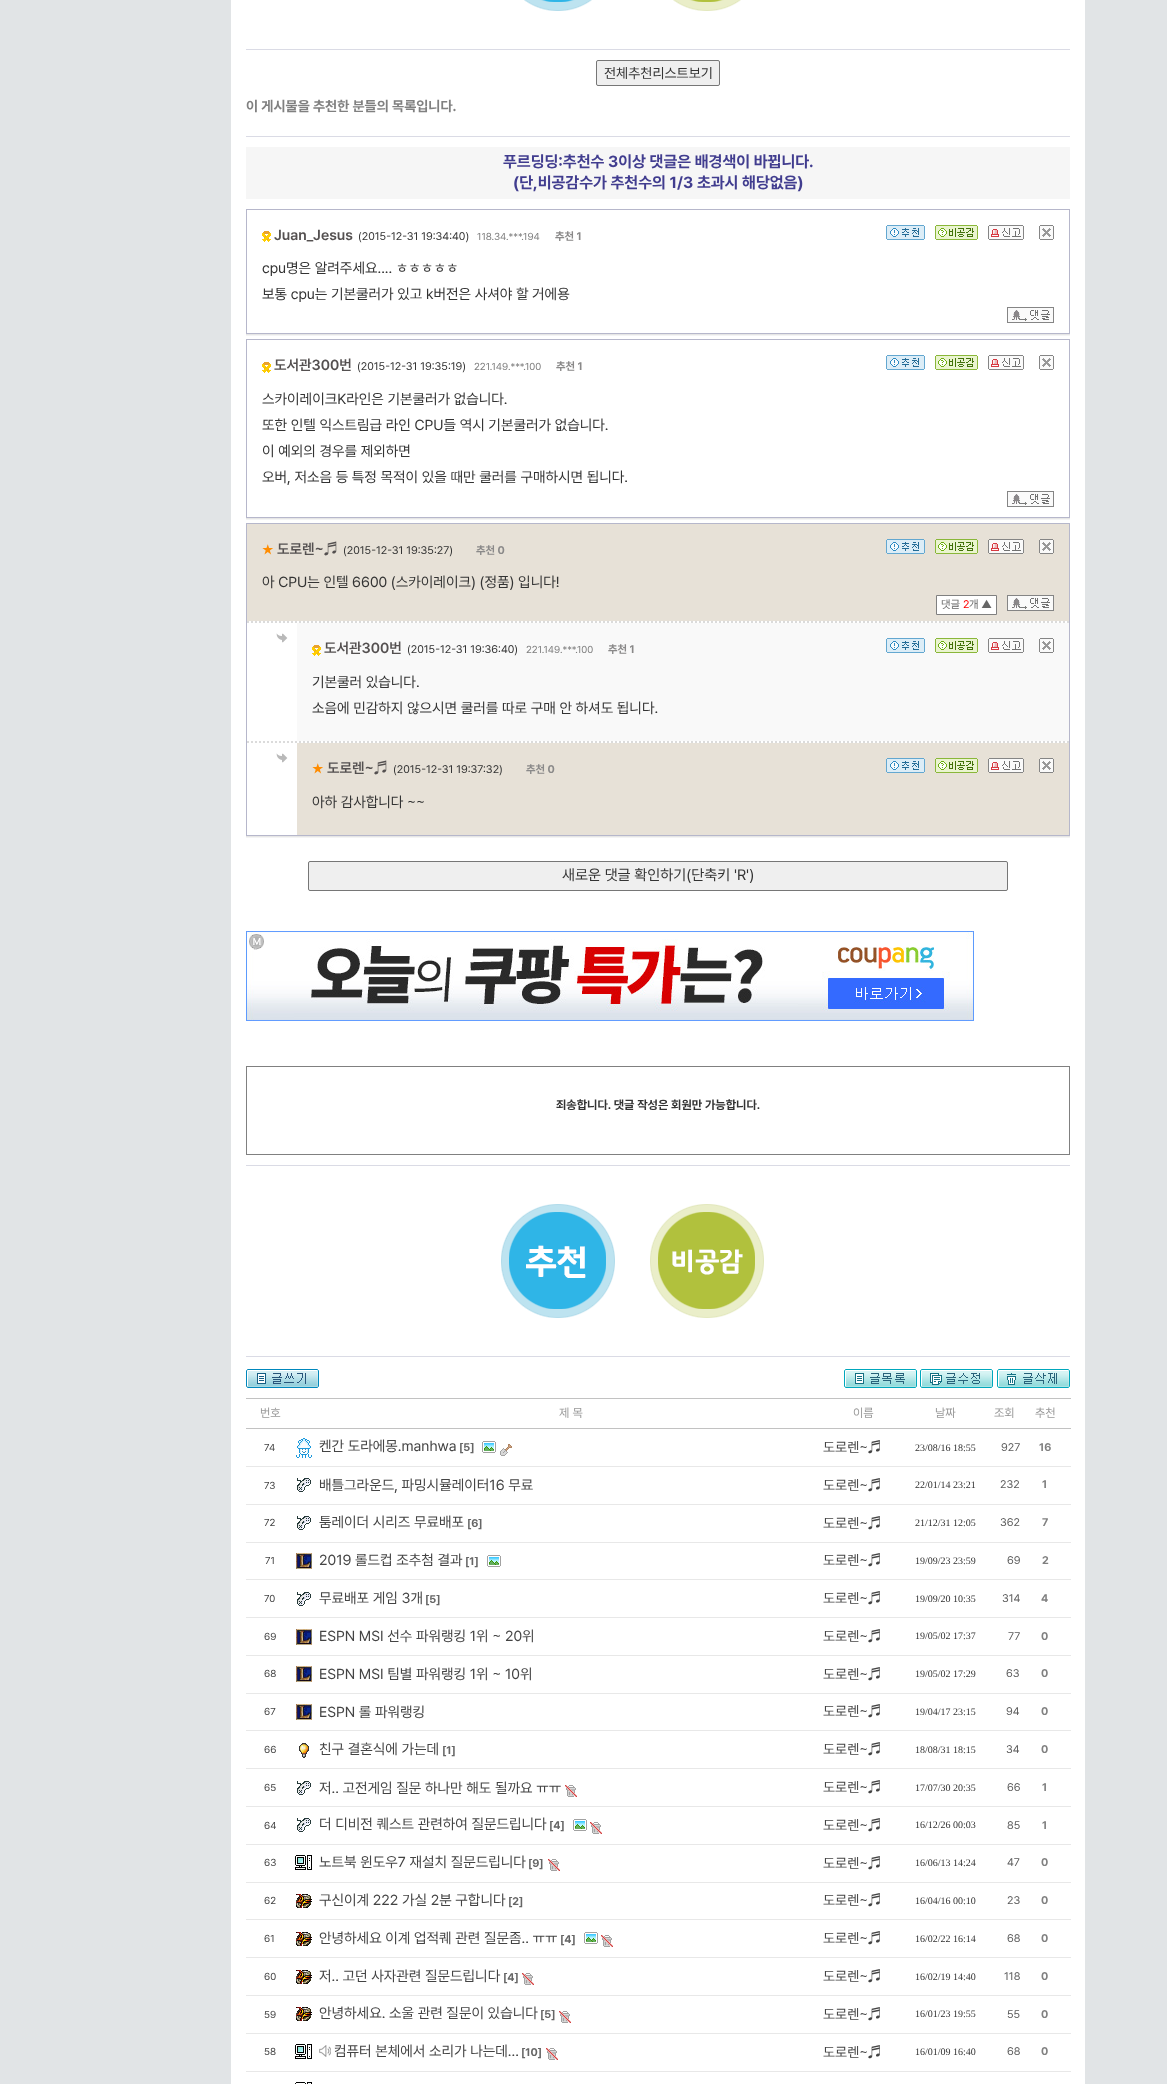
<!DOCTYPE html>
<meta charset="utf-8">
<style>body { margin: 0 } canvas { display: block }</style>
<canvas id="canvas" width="1167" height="2084"></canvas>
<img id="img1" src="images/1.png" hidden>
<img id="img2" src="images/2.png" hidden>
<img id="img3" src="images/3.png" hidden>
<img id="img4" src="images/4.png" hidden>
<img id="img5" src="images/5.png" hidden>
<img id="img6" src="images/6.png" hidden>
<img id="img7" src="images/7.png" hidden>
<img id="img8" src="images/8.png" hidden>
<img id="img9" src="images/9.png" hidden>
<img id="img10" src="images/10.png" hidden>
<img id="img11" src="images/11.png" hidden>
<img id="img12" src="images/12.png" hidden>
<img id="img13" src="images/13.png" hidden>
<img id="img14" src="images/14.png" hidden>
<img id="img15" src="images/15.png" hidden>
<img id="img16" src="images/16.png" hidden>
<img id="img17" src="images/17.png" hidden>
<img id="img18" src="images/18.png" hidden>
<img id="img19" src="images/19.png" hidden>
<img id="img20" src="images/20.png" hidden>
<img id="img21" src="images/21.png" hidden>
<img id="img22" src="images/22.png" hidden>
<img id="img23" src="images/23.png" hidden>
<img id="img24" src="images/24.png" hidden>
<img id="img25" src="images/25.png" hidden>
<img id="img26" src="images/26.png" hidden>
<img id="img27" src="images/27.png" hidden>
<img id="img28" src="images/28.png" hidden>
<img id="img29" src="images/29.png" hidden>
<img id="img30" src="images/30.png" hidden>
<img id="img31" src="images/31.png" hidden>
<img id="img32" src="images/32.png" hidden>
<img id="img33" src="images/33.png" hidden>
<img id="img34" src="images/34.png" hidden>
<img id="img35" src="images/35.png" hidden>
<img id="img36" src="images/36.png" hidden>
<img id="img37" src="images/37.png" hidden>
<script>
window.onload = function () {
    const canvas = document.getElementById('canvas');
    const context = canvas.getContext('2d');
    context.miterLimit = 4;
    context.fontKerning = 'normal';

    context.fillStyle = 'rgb(225, 228, 230)';
    context.fillRect(0, 0, 1167, 2084);
    context.fillStyle = 'rgb(255, 255, 255)';
    context.fillRect(231, 0, 854, 2084);
    context.drawImage(document.getElementById('img1'), 524, 0, 68, 11);
    context.drawImage(document.getElementById('img2'), 673, 0, 68, 11);
    context.fillStyle = 'rgb(218, 219, 229)';
    context.fillRect(246, 49, 824, 1);
    context.fillStyle = 'rgb(239, 239, 239)';
    context.beginPath();
    context.roundRect(596.5, 60.5, 123, 25, 1.5);
    context.fill();
    context.strokeStyle = 'rgb(118, 118, 118)';
    context.stroke();
    context.fillStyle = 'rgb(218, 219, 229)';
    context.fillRect(246, 136, 824, 1);
    context.fillStyle = 'rgb(246, 246, 246)';
    context.fillRect(246, 147, 824, 52);
    context.strokeStyle = 'rgb(182, 183, 203)';
    context.strokeRect(246.5, 209.5, 823, 124);
    context.drawImage(document.getElementById('img3'), 262, 231, 9, 11);
    context.drawImage(document.getElementById('img4'), 886, 225, 39, 15);
    context.drawImage(document.getElementById('img5'), 935, 225, 43, 15);
    context.drawImage(document.getElementById('img6'), 988, 225, 36, 15);
    context.drawImage(document.getElementById('img7'), 1039, 225, 15, 15);
    context.drawImage(document.getElementById('img8'), 1007, 307, 47, 16);
    context.drawImage(document.getElementById('img9'), 246, 334, 824, 2);
    context.strokeRect(246.5, 339.5, 823, 178);
    context.drawImage(document.getElementById('img3'), 262, 362, 9, 11);
    context.drawImage(document.getElementById('img4'), 886, 355, 39, 15);
    context.drawImage(document.getElementById('img5'), 935, 355, 43, 15);
    context.drawImage(document.getElementById('img6'), 988, 355, 36, 15);
    context.drawImage(document.getElementById('img7'), 1039, 355, 15, 15);
    context.drawImage(document.getElementById('img8'), 1007, 491, 47, 16);
    context.drawImage(document.getElementById('img9'), 246, 518, 824, 2);
    context.strokeRect(246.5, 523.5, 823, 312);
    context.fillStyle = 'rgb(231, 225, 215)';
    context.fillRect(247, 524, 822, 97);
    context.drawImage(document.getElementById('img10'), 886, 539, 39, 15);
    context.drawImage(document.getElementById('img11'), 935, 539, 43, 15);
    context.drawImage(document.getElementById('img12'), 988, 539, 36, 15);
    context.drawImage(document.getElementById('img13'), 1039, 539, 15, 15);
    context.fillStyle = 'rgb(255, 255, 255)';
    context.beginPath();
    context.rect(936.5, 595.5, 60, 19);
    context.fill();
    context.strokeStyle = 'rgb(128, 128, 128)';
    context.stroke();
    context.drawImage(document.getElementById('img8'), 1007, 595, 47, 16);
    context.drawImage(document.getElementById('img14'), 276, 633, 12, 10);
    context.beginPath();
    context.moveTo(247, 622);
    context.lineTo(1069, 622);
    context.strokeStyle = 'rgb(219, 219, 219)';
    context.lineWidth = 2;
    context.setLineDash([2, 2]);
    context.stroke();
    context.fillStyle = 'rgb(249, 249, 249)';
    context.fillRect(297, 623, 772, 118);
    context.drawImage(document.getElementById('img15'), 312, 645, 9, 11);
    context.drawImage(document.getElementById('img16'), 886, 638, 39, 15);
    context.drawImage(document.getElementById('img17'), 935, 638, 43, 15);
    context.drawImage(document.getElementById('img18'), 988, 638, 36, 15);
    context.drawImage(document.getElementById('img19'), 1039, 638, 15, 15);
    context.drawImage(document.getElementById('img14'), 276, 753, 12, 10);
    context.beginPath();
    context.moveTo(247, 742);
    context.lineTo(1069, 742);
    context.stroke();
    context.fillStyle = 'rgb(231, 225, 215)';
    context.fillRect(297, 743, 772, 92);
    context.drawImage(document.getElementById('img10'), 886, 758, 39, 15);
    context.drawImage(document.getElementById('img11'), 935, 758, 43, 15);
    context.drawImage(document.getElementById('img12'), 988, 758, 36, 15);
    context.drawImage(document.getElementById('img13'), 1039, 758, 15, 15);
    context.drawImage(document.getElementById('img9'), 246, 836, 824, 2);
    context.fillStyle = 'rgb(239, 239, 239)';
    context.beginPath();
    context.roundRect(308.5, 861.5, 699, 29, 1.5);
    context.fill();
    context.strokeStyle = 'rgb(118, 118, 118)';
    context.lineWidth = 1;
    context.setLineDash([]);
    context.stroke();
    context.drawImage(document.getElementById('img20'), 246, 931, 728, 90);
    context.strokeStyle = 'rgb(128, 128, 128)';
    context.strokeRect(246.5, 1066.5, 823, 88);
    context.fillStyle = 'rgb(218, 219, 229)';
    context.fillRect(246, 1165, 824, 1);
    context.drawImage(document.getElementById('img21'), 501, 1204, 114, 114);
    context.drawImage(document.getElementById('img22'), 650, 1204, 114, 114);
    context.fillRect(246, 1356, 824, 1);
    context.drawImage(document.getElementById('img23'), 246, 1369, 73, 19);
    context.drawImage(document.getElementById('img24'), 844, 1369, 73, 19);
    context.drawImage(document.getElementById('img25'), 920, 1369, 73, 19);
    context.drawImage(document.getElementById('img26'), 997, 1369, 73, 19);
    context.fillStyle = 'rgb(194, 194, 194)';
    context.fillRect(246, 1398, 825, 1);
    context.fillRect(246, 1428, 825, 1);
    context.drawImage(document.getElementById('img27'), 296, 1438, 16, 20);
    context.drawImage(document.getElementById('img28'), 482, 1441, 14, 12);
    context.drawImage(document.getElementById('img29'), 500, 1444, 12, 12);
    context.fillStyle = 'rgb(232, 232, 232)';
    context.fillRect(246, 1466, 825, 1);
    context.drawImage(document.getElementById('img30'), 297, 1478, 14, 14);
    context.fillRect(246, 1504, 825, 1);
    context.drawImage(document.getElementById('img30'), 297, 1516, 14, 14);
    context.fillRect(246, 1542, 825, 1);
    context.drawImage(document.getElementById('img31'), 296, 1553, 16, 16);
    context.drawImage(document.getElementById('img28'), 487, 1555, 14, 12);
    context.fillRect(246, 1579, 825, 1);
    context.drawImage(document.getElementById('img30'), 297, 1592, 14, 14);
    context.fillRect(246, 1617, 825, 1);
    context.drawImage(document.getElementById('img31'), 296, 1629, 16, 16);
    context.fillRect(246, 1655, 825, 1);
    context.drawImage(document.getElementById('img31'), 296, 1666, 16, 16);
    context.fillRect(246, 1693, 825, 1);
    context.drawImage(document.getElementById('img31'), 296, 1704, 16, 16);
    context.fillRect(246, 1730, 825, 1);
    context.drawImage(document.getElementById('img32'), 299, 1743, 10, 15);
    context.fillRect(246, 1768, 825, 1);
    context.drawImage(document.getElementById('img30'), 297, 1781, 14, 14);
    context.drawImage(document.getElementById('img33'), 565, 1785, 12, 12);
    context.fillRect(246, 1806, 825, 1);
    context.drawImage(document.getElementById('img30'), 297, 1818, 14, 14);
    context.drawImage(document.getElementById('img28'), 573, 1819, 14, 12);
    context.drawImage(document.getElementById('img33'), 590, 1822, 12, 12);
    context.fillRect(246, 1844, 825, 1);
    context.drawImage(document.getElementById('img34'), 295, 1855, 17, 15);
    context.drawImage(document.getElementById('img33'), 548, 1859, 12, 12);
    context.fillRect(246, 1882, 825, 1);
    context.drawImage(document.getElementById('img35'), 296, 1894, 16, 14);
    context.fillRect(246, 1919, 825, 1);
    context.drawImage(document.getElementById('img35'), 296, 1932, 16, 14);
    context.drawImage(document.getElementById('img28'), 584, 1932, 14, 12);
    context.drawImage(document.getElementById('img33'), 601, 1935, 12, 12);
    context.fillRect(246, 1957, 825, 1);
    context.drawImage(document.getElementById('img35'), 296, 1970, 16, 14);
    context.drawImage(document.getElementById('img33'), 522, 1973, 12, 12);
    context.fillRect(246, 1995, 825, 1);
    context.drawImage(document.getElementById('img35'), 296, 2007, 16, 14);
    context.drawImage(document.getElementById('img33'), 559, 2011, 12, 12);
    context.fillRect(246, 2033, 825, 1);
    context.drawImage(document.getElementById('img34'), 295, 2044, 17, 15);
    context.drawImage(document.getElementById('img36'), 319, 2045, 12, 12);
    context.drawImage(document.getElementById('img33'), 546, 2048, 12, 12);
    context.fillRect(246, 2071, 825, 1);
    context.drawImage(document.getElementById('img37'), 295, 2082, 17, 2);
    context.font = '14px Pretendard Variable';
    context.fillStyle = 'rgb(51, 51, 51)';
    context.fillText('전체추천리스트보기', 604, 78);
    context.font = 'bold 14px Pretendard Variable';
    context.fillStyle = 'rgb(128, 128, 128)';
    context.fillText('이 게시물을 추천한 분들의 목록입니다.', 246, 111);
    context.font = 'bold 16px Pretendard Variable';
    context.fillStyle = 'rgb(65, 61, 143)';
    context.fillText('푸르딩딩:추천수 3이상 댓글은 배경색이 바뀝니다.', 503, 167);
    context.fillText('(단,비공감수가 추천수의 1/3 초과시 해당없음)', 513, 188);
    context.font = '600 14.5px Pretendard Variable';
    context.fillStyle = 'rgb(84, 80, 80)';
    context.fillText('Juan_Jesus', 274, 240);
    context.font = '11px Pretendard Variable';
    context.fillStyle = 'rgb(51, 51, 51)';
    context.fillText('(2015-12-31 19:34:40)', 358, 240);
    context.font = '10px Pretendard Variable';
    context.fillStyle = 'rgb(128, 128, 128)';
    context.fillText('118.34.***.194', 477, 240);
    context.font = 'bold 11px Pretendard Variable';
    context.fillStyle = 'rgb(138, 137, 137)';
    context.fillText('추천 1', 555, 240);
    context.font = '14.5px Pretendard Variable';
    context.fillStyle = 'rgb(51, 51, 51)';
    context.fillText('cpu명은 알려주세요.... ㅎㅎㅎㅎㅎ', 262, 273);
    context.fillText('보통 cpu는 기본쿨러가 있고 k버전은 사셔야 할 거에용', 262, 299);
    context.font = '600 14.5px Pretendard Variable';
    context.fillStyle = 'rgb(84, 80, 80)';
    context.fillText('도서관300번', 274, 370);
    context.font = '11px Pretendard Variable';
    context.fillStyle = 'rgb(51, 51, 51)';
    context.fillText('(2015-12-31 19:35:19)', 357, 370);
    context.font = '10px Pretendard Variable';
    context.fillStyle = 'rgb(128, 128, 128)';
    context.fillText('221.149.***.100', 474, 370);
    context.font = 'bold 11px Pretendard Variable';
    context.fillStyle = 'rgb(138, 137, 137)';
    context.fillText('추천 1', 556, 370);
    context.font = '14.5px Pretendard Variable';
    context.fillStyle = 'rgb(51, 51, 51)';
    context.fillText('스카이레이크K라인은 기본쿨러가 없습니다.', 262, 404);
    context.fillText('또한 인텔 익스트림급 라인 CPU들 역시 기본쿨러가 없습니다.', 262, 430);
    context.fillText('이 예외의 경우를 제외하면', 262, 456);
    context.fillText('오버, 저소음 등 특정 목적이 있을 때만 쿨러를 구매하시면 됩니다.', 262, 482);
    context.font = '12px Pretendard Variable';
    context.fillStyle = 'rgb(255, 140, 0)';
    context.fillText('★', 262, 554);
    context.font = '600 14.5px Pretendard Variable';
    context.fillStyle = 'rgb(84, 80, 80)';
    context.fillText('도로렌~', 277, 554);
    context.font = '600 14.5px Noto Sans KR';
    context.fillText('♬', 324, 554);
    context.font = '11px Pretendard Variable';
    context.fillStyle = 'rgb(51, 51, 51)';
    context.fillText('(2015-12-31 19:35:27)', 343, 554);
    context.font = 'bold 11px Pretendard Variable';
    context.fillStyle = 'rgb(138, 137, 137)';
    context.fillText('추천 0', 476, 554);
    context.font = '14.5px Pretendard Variable';
    context.fillStyle = 'rgb(51, 51, 51)';
    context.fillText('아 CPU는 인텔 6600 (스카이레이크) (정품) 입니다!', 262, 587);
    context.font = '11px Pretendard Variable';
    context.fillStyle = 'rgb(102, 102, 102)';
    context.fillText('댓글', 941, 608);
    context.fillStyle = 'rgb(255, 0, 0)';
    context.fillText('2', 963, 608);
    context.fillStyle = 'rgb(102, 102, 102)';
    context.fillText('개 ▲', 969, 608);
    context.font = '600 14.5px Pretendard Variable';
    context.fillStyle = 'rgb(84, 80, 80)';
    context.fillText('도서관300번', 324, 653);
    context.font = '11px Pretendard Variable';
    context.fillStyle = 'rgb(51, 51, 51)';
    context.fillText('(2015-12-31 19:36:40)', 407, 653);
    context.font = '10px Pretendard Variable';
    context.fillStyle = 'rgb(128, 128, 128)';
    context.fillText('221.149.***.100', 526, 653);
    context.font = 'bold 11px Pretendard Variable';
    context.fillStyle = 'rgb(138, 137, 137)';
    context.fillText('추천 1', 608, 653);
    context.font = '14.5px Pretendard Variable';
    context.fillStyle = 'rgb(51, 51, 51)';
    context.fillText('기본쿨러 있습니다.', 312, 687);
    context.fillText('소음에 민감하지 않으시면 쿨러를 따로 구매 안 하셔도 됩니다.', 312, 713);
    context.font = '12px Pretendard Variable';
    context.fillStyle = 'rgb(255, 140, 0)';
    context.fillText('★', 312, 773);
    context.font = '600 14.5px Pretendard Variable';
    context.fillStyle = 'rgb(84, 80, 80)';
    context.fillText('도로렌~', 327, 773);
    context.font = '600 14.5px Noto Sans KR';
    context.fillText('♬', 374, 773);
    context.font = '11px Pretendard Variable';
    context.fillStyle = 'rgb(51, 51, 51)';
    context.fillText('(2015-12-31 19:37:32)', 393, 773);
    context.font = 'bold 11px Pretendard Variable';
    context.fillStyle = 'rgb(138, 137, 137)';
    context.fillText('추천 0', 526, 773);
    context.font = '14.5px Pretendard Variable';
    context.fillStyle = 'rgb(51, 51, 51)';
    context.fillText('아하 감사합니다 ~~', 312, 807);
    context.font = '15px Pretendard Variable';
    context.fillText('새로운 댓글 확인하기(단축키 \'R\')', 562, 880);
    context.font = 'bold 12px Pretendard Variable';
    context.fillText('죄송합니다. 댓글 작성은 회원만 가능합니다.', 556, 1109);
    context.font = '12px Pretendard Variable';
    context.fillStyle = 'rgb(153, 153, 153)';
    context.fillText('번호', 260, 1417);
    context.fillText('제 목', 559, 1417);
    context.fillText('이름', 853, 1417);
    context.fillText('날짜', 935, 1417);
    context.fillText('조회', 994, 1417);
    context.fillText('추천', 1035, 1417);
    context.font = '10px Pretendard Variable';
    context.fillStyle = 'rgb(68, 68, 68)';
    context.fillText('74', 264, 1451);
    context.font = '14.5px Pretendard Variable';
    context.fillText('켄간 도라에몽.manhwa', 319, 1451);
    context.font = 'bold 11px Pretendard Variable';
    context.fillStyle = 'rgb(102, 102, 102)';
    context.fillText('[5]', 459, 1451);
    context.font = '14px Pretendard Variable';
    context.fillStyle = 'rgb(68, 68, 68)';
    context.fillText('도로렌~', 823, 1452);
    context.font = '14px Noto Sans KR';
    context.fillText('♬', 868, 1452);
    context.font = '10px Liberation Serif';
    context.fillStyle = 'rgb(51, 51, 51)';
    context.fillText('23/08/16 18:55', 915, 1451);
    context.font = '11px Pretendard Variable';
    context.fillStyle = 'rgb(92, 92, 92)';
    context.fillText('927', 1001, 1451);
    context.font = 'bold 11px Pretendard Variable';
    context.fillStyle = 'rgb(128, 128, 128)';
    context.fillText('16', 1039, 1451);
    context.font = '10px Pretendard Variable';
    context.fillStyle = 'rgb(68, 68, 68)';
    context.fillText('73', 264, 1489);
    context.font = '14.5px Pretendard Variable';
    context.fillText('배틀그라운드, 파밍시뮬레이터16 무료', 319, 1490);
    context.font = '14px Pretendard Variable';
    context.fillText('도로렌~', 823, 1490);
    context.font = '14px Noto Sans KR';
    context.fillText('♬', 868, 1490);
    context.font = '10px Liberation Serif';
    context.fillStyle = 'rgb(51, 51, 51)';
    context.fillText('22/01/14 23:21', 915, 1488);
    context.font = '11px Pretendard Variable';
    context.fillStyle = 'rgb(92, 92, 92)';
    context.fillText('232', 1000, 1488);
    context.font = 'bold 11px Pretendard Variable';
    context.fillStyle = 'rgb(128, 128, 128)';
    context.fillText('1', 1042, 1488);
    context.font = '10px Pretendard Variable';
    context.fillStyle = 'rgb(68, 68, 68)';
    context.fillText('72', 264, 1526);
    context.font = '14.5px Pretendard Variable';
    context.fillText('툼레이더 시리즈 무료배포', 319, 1527);
    context.font = 'bold 11px Pretendard Variable';
    context.fillStyle = 'rgb(102, 102, 102)';
    context.fillText('[6]', 467, 1527);
    context.font = '14px Pretendard Variable';
    context.fillStyle = 'rgb(68, 68, 68)';
    context.fillText('도로렌~', 823, 1528);
    context.font = '14px Noto Sans KR';
    context.fillText('♬', 868, 1528);
    context.font = '10px Liberation Serif';
    context.fillStyle = 'rgb(51, 51, 51)';
    context.fillText('21/12/31 12:05', 915, 1526);
    context.font = '11px Pretendard Variable';
    context.fillStyle = 'rgb(92, 92, 92)';
    context.fillText('362', 1000, 1526);
    context.font = 'bold 11px Pretendard Variable';
    context.fillStyle = 'rgb(128, 128, 128)';
    context.fillText('7', 1042, 1526);
    context.font = '10px Pretendard Variable';
    context.fillStyle = 'rgb(68, 68, 68)';
    context.fillText('71', 265, 1564);
    context.font = '14.5px Pretendard Variable';
    context.fillText('2019 롤드컵 조추첨 결과', 319, 1565);
    context.font = 'bold 11px Pretendard Variable';
    context.fillStyle = 'rgb(102, 102, 102)';
    context.fillText('[1]', 465, 1565);
    context.font = '14px Pretendard Variable';
    context.fillStyle = 'rgb(68, 68, 68)';
    context.fillText('도로렌~', 823, 1565);
    context.font = '14px Noto Sans KR';
    context.fillText('♬', 868, 1565);
    context.font = '10px Liberation Serif';
    context.fillStyle = 'rgb(51, 51, 51)';
    context.fillText('19/09/23 23:59', 915, 1564);
    context.font = '11px Pretendard Variable';
    context.fillStyle = 'rgb(92, 92, 92)';
    context.fillText('69', 1007, 1564);
    context.font = 'bold 11px Pretendard Variable';
    context.fillStyle = 'rgb(128, 128, 128)';
    context.fillText('2', 1042, 1564);
    context.font = '10px Pretendard Variable';
    context.fillStyle = 'rgb(68, 68, 68)';
    context.fillText('70', 264, 1602);
    context.font = '14.5px Pretendard Variable';
    context.fillText('무료배포 게임 3개', 319, 1603);
    context.font = 'bold 11px Pretendard Variable';
    context.fillStyle = 'rgb(102, 102, 102)';
    context.fillText('[5]', 425, 1603);
    context.font = '14px Pretendard Variable';
    context.fillStyle = 'rgb(68, 68, 68)';
    context.fillText('도로렌~', 823, 1603);
    context.font = '14px Noto Sans KR';
    context.fillText('♬', 868, 1603);
    context.font = '10px Liberation Serif';
    context.fillStyle = 'rgb(51, 51, 51)';
    context.fillText('19/09/20 10:35', 915, 1602);
    context.font = '11px Pretendard Variable';
    context.fillStyle = 'rgb(92, 92, 92)';
    context.fillText('314', 1002, 1602);
    context.font = 'bold 11px Pretendard Variable';
    context.fillStyle = 'rgb(128, 128, 128)';
    context.fillText('4', 1041, 1602);
    context.font = '10px Pretendard Variable';
    context.fillStyle = 'rgb(68, 68, 68)';
    context.fillText('69', 264, 1640);
    context.font = '14.5px Pretendard Variable';
    context.fillText('ESPN MSI 선수 파워랭킹 1위 ~ 20위', 319, 1641);
    context.font = '14px Pretendard Variable';
    context.fillText('도로렌~', 823, 1641);
    context.font = '14px Noto Sans KR';
    context.fillText('♬', 868, 1641);
    context.font = '10px Liberation Serif';
    context.fillStyle = 'rgb(51, 51, 51)';
    context.fillText('19/05/02 17:37', 915, 1639);
    context.font = '11px Pretendard Variable';
    context.fillStyle = 'rgb(92, 92, 92)';
    context.fillText('77', 1008, 1640);
    context.font = 'bold 11px Pretendard Variable';
    context.fillStyle = 'rgb(128, 128, 128)';
    context.fillText('0', 1041, 1640);
    context.font = '10px Pretendard Variable';
    context.fillStyle = 'rgb(68, 68, 68)';
    context.fillText('68', 264, 1677);
    context.font = '14.5px Pretendard Variable';
    context.fillText('ESPN MSI 팀별 파워랭킹 1위 ~ 10위', 319, 1679);
    context.font = '14px Pretendard Variable';
    context.fillText('도로렌~', 823, 1679);
    context.font = '14px Noto Sans KR';
    context.fillText('♬', 868, 1679);
    context.font = '10px Liberation Serif';
    context.fillStyle = 'rgb(51, 51, 51)';
    context.fillText('19/05/02 17:29', 915, 1677);
    context.font = '11px Pretendard Variable';
    context.fillStyle = 'rgb(92, 92, 92)';
    context.fillText('63', 1006, 1677);
    context.font = 'bold 11px Pretendard Variable';
    context.fillStyle = 'rgb(128, 128, 128)';
    context.fillText('0', 1041, 1677);
    context.font = '10px Pretendard Variable';
    context.fillStyle = 'rgb(68, 68, 68)';
    context.fillText('67', 264, 1715);
    context.font = '14.5px Pretendard Variable';
    context.fillText('ESPN 롤 파워랭킹', 319, 1717);
    context.font = '14px Pretendard Variable';
    context.fillText('도로렌~', 823, 1716);
    context.font = '14px Noto Sans KR';
    context.fillText('♬', 868, 1716);
    context.font = '10px Liberation Serif';
    context.fillStyle = 'rgb(51, 51, 51)';
    context.fillText('19/04/17 23:15', 915, 1715);
    context.font = '11px Pretendard Variable';
    context.fillStyle = 'rgb(92, 92, 92)';
    context.fillText('94', 1006, 1715);
    context.font = 'bold 11px Pretendard Variable';
    context.fillStyle = 'rgb(128, 128, 128)';
    context.fillText('0', 1041, 1715);
    context.font = '10px Pretendard Variable';
    context.fillStyle = 'rgb(68, 68, 68)';
    context.fillText('66', 264, 1753);
    context.font = '14.5px Pretendard Variable';
    context.fillText('친구 결혼식에 가는데', 319, 1754);
    context.font = 'bold 11px Pretendard Variable';
    context.fillStyle = 'rgb(102, 102, 102)';
    context.fillText('[1]', 442, 1754);
    context.font = '14px Pretendard Variable';
    context.fillStyle = 'rgb(68, 68, 68)';
    context.fillText('도로렌~', 823, 1754);
    context.font = '14px Noto Sans KR';
    context.fillText('♬', 868, 1754);
    context.font = '10px Liberation Serif';
    context.fillStyle = 'rgb(51, 51, 51)';
    context.fillText('18/08/31 18:15', 915, 1753);
    context.font = '11px Pretendard Variable';
    context.fillStyle = 'rgb(92, 92, 92)';
    context.fillText('34', 1006, 1753);
    context.font = 'bold 11px Pretendard Variable';
    context.fillStyle = 'rgb(128, 128, 128)';
    context.fillText('0', 1041, 1753);
    context.font = '10px Pretendard Variable';
    context.fillStyle = 'rgb(68, 68, 68)';
    context.fillText('65', 264, 1791);
    context.font = '14.5px Pretendard Variable';
    context.fillText('저.. 고전게임 질문 하나만 해도 될까요 ㅠㅠ', 319, 1793);
    context.font = '14px Pretendard Variable';
    context.fillText('도로렌~', 823, 1792);
    context.font = '14px Noto Sans KR';
    context.fillText('♬', 868, 1792);
    context.font = '10px Liberation Serif';
    context.fillStyle = 'rgb(51, 51, 51)';
    context.fillText('17/07/30 20:35', 915, 1791);
    context.font = '11px Pretendard Variable';
    context.fillStyle = 'rgb(92, 92, 92)';
    context.fillText('66', 1007, 1791);
    context.font = 'bold 11px Pretendard Variable';
    context.fillStyle = 'rgb(128, 128, 128)';
    context.fillText('1', 1042, 1791);
    context.font = '10px Pretendard Variable';
    context.fillStyle = 'rgb(68, 68, 68)';
    context.fillText('64', 264, 1829);
    context.font = '14.5px Pretendard Variable';
    context.fillText('더 디비전 퀘스트 관련하여 질문드립니다', 319, 1829);
    context.font = 'bold 11px Pretendard Variable';
    context.fillStyle = 'rgb(102, 102, 102)';
    context.fillText('[4]', 549, 1829);
    context.font = '14px Pretendard Variable';
    context.fillStyle = 'rgb(68, 68, 68)';
    context.fillText('도로렌~', 823, 1830);
    context.font = '14px Noto Sans KR';
    context.fillText('♬', 868, 1830);
    context.font = '10px Liberation Serif';
    context.fillStyle = 'rgb(51, 51, 51)';
    context.fillText('16/12/26 00:03', 915, 1828);
    context.font = '11px Pretendard Variable';
    context.fillStyle = 'rgb(92, 92, 92)';
    context.fillText('85', 1007, 1829);
    context.font = 'bold 11px Pretendard Variable';
    context.fillStyle = 'rgb(128, 128, 128)';
    context.fillText('1', 1042, 1829);
    context.font = '10px Pretendard Variable';
    context.fillStyle = 'rgb(68, 68, 68)';
    context.fillText('63', 264, 1866);
    context.font = '14.5px Pretendard Variable';
    context.fillText('노트북 윈도우7 재설치 질문드립니다', 319, 1867);
    context.font = 'bold 11px Pretendard Variable';
    context.fillStyle = 'rgb(102, 102, 102)';
    context.fillText('[9]', 528, 1867);
    context.font = '14px Pretendard Variable';
    context.fillStyle = 'rgb(68, 68, 68)';
    context.fillText('도로렌~', 823, 1868);
    context.font = '14px Noto Sans KR';
    context.fillText('♬', 868, 1868);
    context.font = '10px Liberation Serif';
    context.fillStyle = 'rgb(51, 51, 51)';
    context.fillText('16/06/13 14:24', 915, 1866);
    context.font = '11px Pretendard Variable';
    context.fillStyle = 'rgb(92, 92, 92)';
    context.fillText('47', 1007, 1866);
    context.font = 'bold 11px Pretendard Variable';
    context.fillStyle = 'rgb(128, 128, 128)';
    context.fillText('0', 1041, 1866);
    context.font = '10px Pretendard Variable';
    context.fillStyle = 'rgb(68, 68, 68)';
    context.fillText('62', 264, 1904);
    context.font = '14.5px Pretendard Variable';
    context.fillText('구신이계 222 가실 2분 구합니다', 319, 1905);
    context.font = 'bold 11px Pretendard Variable';
    context.fillStyle = 'rgb(102, 102, 102)';
    context.fillText('[2]', 508, 1905);
    context.font = '14px Pretendard Variable';
    context.fillStyle = 'rgb(68, 68, 68)';
    context.fillText('도로렌~', 823, 1905);
    context.font = '14px Noto Sans KR';
    context.fillText('♬', 868, 1905);
    context.font = '10px Liberation Serif';
    context.fillStyle = 'rgb(51, 51, 51)';
    context.fillText('16/04/16 00:10', 915, 1904);
    context.font = '11px Pretendard Variable';
    context.fillStyle = 'rgb(92, 92, 92)';
    context.fillText('23', 1007, 1904);
    context.font = 'bold 11px Pretendard Variable';
    context.fillStyle = 'rgb(128, 128, 128)';
    context.fillText('0', 1041, 1904);
    context.font = '10px Pretendard Variable';
    context.fillStyle = 'rgb(68, 68, 68)';
    context.fillText('61', 264, 1942);
    context.font = '14.5px Pretendard Variable';
    context.fillText('안녕하세요 이계 업적퀘 관련 질문좀.. ㅠㅠ', 319, 1943);
    context.font = 'bold 11px Pretendard Variable';
    context.fillStyle = 'rgb(102, 102, 102)';
    context.fillText('[4]', 560, 1943);
    context.font = '14px Pretendard Variable';
    context.fillStyle = 'rgb(68, 68, 68)';
    context.fillText('도로렌~', 823, 1943);
    context.font = '14px Noto Sans KR';
    context.fillText('♬', 868, 1943);
    context.font = '10px Liberation Serif';
    context.fillStyle = 'rgb(51, 51, 51)';
    context.fillText('16/02/22 16:14', 915, 1942);
    context.font = '11px Pretendard Variable';
    context.fillStyle = 'rgb(92, 92, 92)';
    context.fillText('68', 1007, 1942);
    context.font = 'bold 11px Pretendard Variable';
    context.fillStyle = 'rgb(128, 128, 128)';
    context.fillText('0', 1041, 1942);
    context.font = '10px Pretendard Variable';
    context.fillStyle = 'rgb(68, 68, 68)';
    context.fillText('60', 264, 1980);
    context.font = '14.5px Pretendard Variable';
    context.fillText('저.. 고던 사자관련 질문드립니다', 319, 1981);
    context.font = 'bold 11px Pretendard Variable';
    context.fillStyle = 'rgb(102, 102, 102)';
    context.fillText('[4]', 503, 1981);
    context.font = '14px Pretendard Variable';
    context.fillStyle = 'rgb(68, 68, 68)';
    context.fillText('도로렌~', 823, 1981);
    context.font = '14px Noto Sans KR';
    context.fillText('♬', 868, 1981);
    context.font = '10px Liberation Serif';
    context.fillStyle = 'rgb(51, 51, 51)';
    context.fillText('16/02/19 14:40', 915, 1980);
    context.font = '11px Pretendard Variable';
    context.fillStyle = 'rgb(92, 92, 92)';
    context.fillText('118', 1004, 1980);
    context.font = 'bold 11px Pretendard Variable';
    context.fillStyle = 'rgb(128, 128, 128)';
    context.fillText('0', 1041, 1980);
    context.font = '10px Pretendard Variable';
    context.fillStyle = 'rgb(68, 68, 68)';
    context.fillText('59', 264, 2018);
    context.font = '14.5px Pretendard Variable';
    context.fillText('안녕하세요. 소울 관련 질문이 있습니다', 319, 2018);
    context.font = 'bold 11px Pretendard Variable';
    context.fillStyle = 'rgb(102, 102, 102)';
    context.fillText('[5]', 540, 2018);
    context.font = '14px Pretendard Variable';
    context.fillStyle = 'rgb(68, 68, 68)';
    context.fillText('도로렌~', 823, 2019);
    context.font = '14px Noto Sans KR';
    context.fillText('♬', 868, 2019);
    context.font = '10px Liberation Serif';
    context.fillStyle = 'rgb(51, 51, 51)';
    context.fillText('16/01/23 19:55', 915, 2017);
    context.font = '11px Pretendard Variable';
    context.fillStyle = 'rgb(92, 92, 92)';
    context.fillText('55', 1007, 2018);
    context.font = 'bold 11px Pretendard Variable';
    context.fillStyle = 'rgb(128, 128, 128)';
    context.fillText('0', 1041, 2018);
    context.font = '10px Pretendard Variable';
    context.fillStyle = 'rgb(68, 68, 68)';
    context.fillText('58', 264, 2055);
    context.font = '14.5px Pretendard Variable';
    context.fillText('컴퓨터 본체에서 소리가 나는데...', 334, 2056);
    context.font = 'bold 11px Pretendard Variable';
    context.fillStyle = 'rgb(102, 102, 102)';
    context.fillText('[10]', 521, 2056);
    context.font = '14px Pretendard Variable';
    context.fillStyle = 'rgb(68, 68, 68)';
    context.fillText('도로렌~', 823, 2057);
    context.font = '14px Noto Sans KR';
    context.fillText('♬', 868, 2057);
    context.font = '10px Liberation Serif';
    context.fillStyle = 'rgb(51, 51, 51)';
    context.fillText('16/01/09 16:40', 915, 2055);
    context.font = '11px Pretendard Variable';
    context.fillStyle = 'rgb(92, 92, 92)';
    context.fillText('68', 1007, 2055);
    context.font = 'bold 11px Pretendard Variable';
    context.fillStyle = 'rgb(128, 128, 128)';
    context.fillText('0', 1041, 2055);
};
</script>
